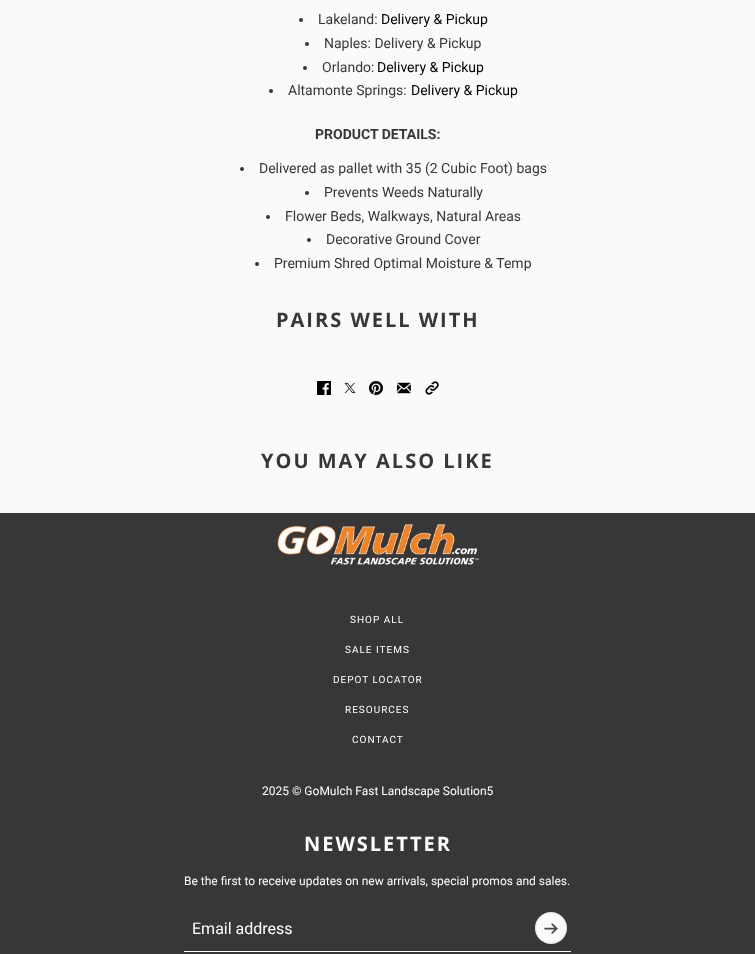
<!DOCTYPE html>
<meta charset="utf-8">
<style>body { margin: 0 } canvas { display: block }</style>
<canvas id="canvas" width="755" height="954"></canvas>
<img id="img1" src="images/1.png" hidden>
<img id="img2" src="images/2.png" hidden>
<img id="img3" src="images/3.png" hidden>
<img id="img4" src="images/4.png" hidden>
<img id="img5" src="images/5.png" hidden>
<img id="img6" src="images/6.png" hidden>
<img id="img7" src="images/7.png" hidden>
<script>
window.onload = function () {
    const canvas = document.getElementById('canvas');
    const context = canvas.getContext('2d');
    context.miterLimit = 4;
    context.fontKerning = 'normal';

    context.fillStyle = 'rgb(250, 250, 250)';
    context.fillRect(0, 0, 755, 954);
    context.fillStyle = 'rgb(55, 55, 55)';
    context.beginPath();
    context.arc(301, 20, 2, 0, 2 * Math.PI);
    context.fill();
    context.beginPath();
    context.arc(307, 44, 2, 0, 2 * Math.PI);
    context.fill();
    context.beginPath();
    context.arc(305, 68, 2, 0, 2 * Math.PI);
    context.fill();
    context.beginPath();
    context.arc(271, 91, 2, 0, 2 * Math.PI);
    context.fill();
    context.beginPath();
    context.arc(242, 169, 2, 0, 2 * Math.PI);
    context.fill();
    context.beginPath();
    context.arc(307, 193, 2, 0, 2 * Math.PI);
    context.fill();
    context.beginPath();
    context.arc(268, 217, 2, 0, 2 * Math.PI);
    context.fill();
    context.beginPath();
    context.arc(309, 240, 2, 0, 2 * Math.PI);
    context.fill();
    context.beginPath();
    context.arc(257, 264, 2, 0, 2 * Math.PI);
    context.fill();
    context.drawImage(document.getElementById('img1'), 317, 381, 14, 14);
    context.drawImage(document.getElementById('img2'), 344, 382, 12, 12);
    context.drawImage(document.getElementById('img3'), 369, 381, 14, 14);
    context.drawImage(document.getElementById('img4'), 397, 382, 14, 12);
    context.drawImage(document.getElementById('img5'), 425, 381, 14, 14);
    context.fillRect(0, 513, 755, 441);
    context.drawImage(document.getElementById('img6'), 277, 524, 202, 41);
    context.fillStyle = 'rgb(255, 255, 255)';
    context.fillRect(184, 951, 387, 1);
    context.fillStyle = 'rgb(250, 250, 250)';
    context.beginPath();
    context.arc(551, 928, 16, 0, 2 * Math.PI);
    context.fill();
    context.beginPath();
    context.arc(551, 928, 15.5, 0, 2 * Math.PI);
    context.strokeStyle = 'rgba(55, 55, 55, 0.1)';
    context.stroke();
    context.drawImage(document.getElementById('img7'), 544, 923, 14, 11);
    context.font = '14px Roboto';
    context.fillStyle = 'rgb(55, 55, 55)';
    context.fillText('Lakeland:', 318, 24);
    context.fillStyle = 'rgb(0, 0, 0)';
    context.fillText('Delivery & Pickup', 381, 24);
    context.fillStyle = 'rgb(55, 55, 55)';
    context.fillText('Naples: Delivery & Pickup', 324, 48);
    context.fillText('Orlando:', 322, 72);
    context.fillStyle = 'rgb(0, 0, 0)';
    context.fillText('Delivery & Pickup', 377, 72);
    context.fillStyle = 'rgb(55, 55, 55)';
    context.fillText('Altamonte Springs:', 288, 95);
    context.fillStyle = 'rgb(0, 0, 0)';
    context.fillText('Delivery & Pickup', 411, 95);
    context.font = 'bold 14px Roboto';
    context.fillStyle = 'rgb(55, 55, 55)';
    context.fillText('PRODUCT DETAILS:', 315, 139);
    context.font = '14px Roboto';
    context.fillText('Delivered as pallet with 35 (2 Cubic Foot) bags', 259, 173);
    context.fillText('Prevents Weeds Naturally', 324, 197);
    context.fillText('Flower Beds, Walkways, Natural Areas', 285, 221);
    context.fillText('Decorative Ground Cover', 326, 244);
    context.fillText('Premium Shred Optimal Moisture & Temp', 274, 268);
    context.letterSpacing = '2px';
    context.font = 'bold 20px Open Sans';
    context.fillText('PAIRS WELL WITH', 276, 327);
    context.fillText('YOU MAY ALSO LIKE', 261, 468);
    context.letterSpacing = '1px';
    context.font = '10px Roboto';
    context.fillStyle = 'rgb(255, 255, 255)';
    context.fillText('SHOP ALL', 350, 623);
    context.fillText('SALE ITEMS', 345, 653);
    context.fillText('DEPOT LOCATOR', 333, 683);
    context.fillText('RESOURCES', 345, 713);
    context.fillText('CONTACT', 352, 743);
    context.letterSpacing = '0px';
    context.font = '12px Roboto';
    context.fillText('2025 © GoMulch Fast Landscape Solution5', 262, 795);
    context.letterSpacing = '2px';
    context.font = 'bold 20px Open Sans';
    context.fillText('NEWSLETTER', 304, 851);
    context.letterSpacing = '0px';
    context.font = '12px Roboto';
    context.fillText('Be the first to receive updates on new arrivals, special promos and sales.', 184, 885);
    context.font = '16px Roboto';
    context.fillText('Email address', 192, 934);
};
</script>
